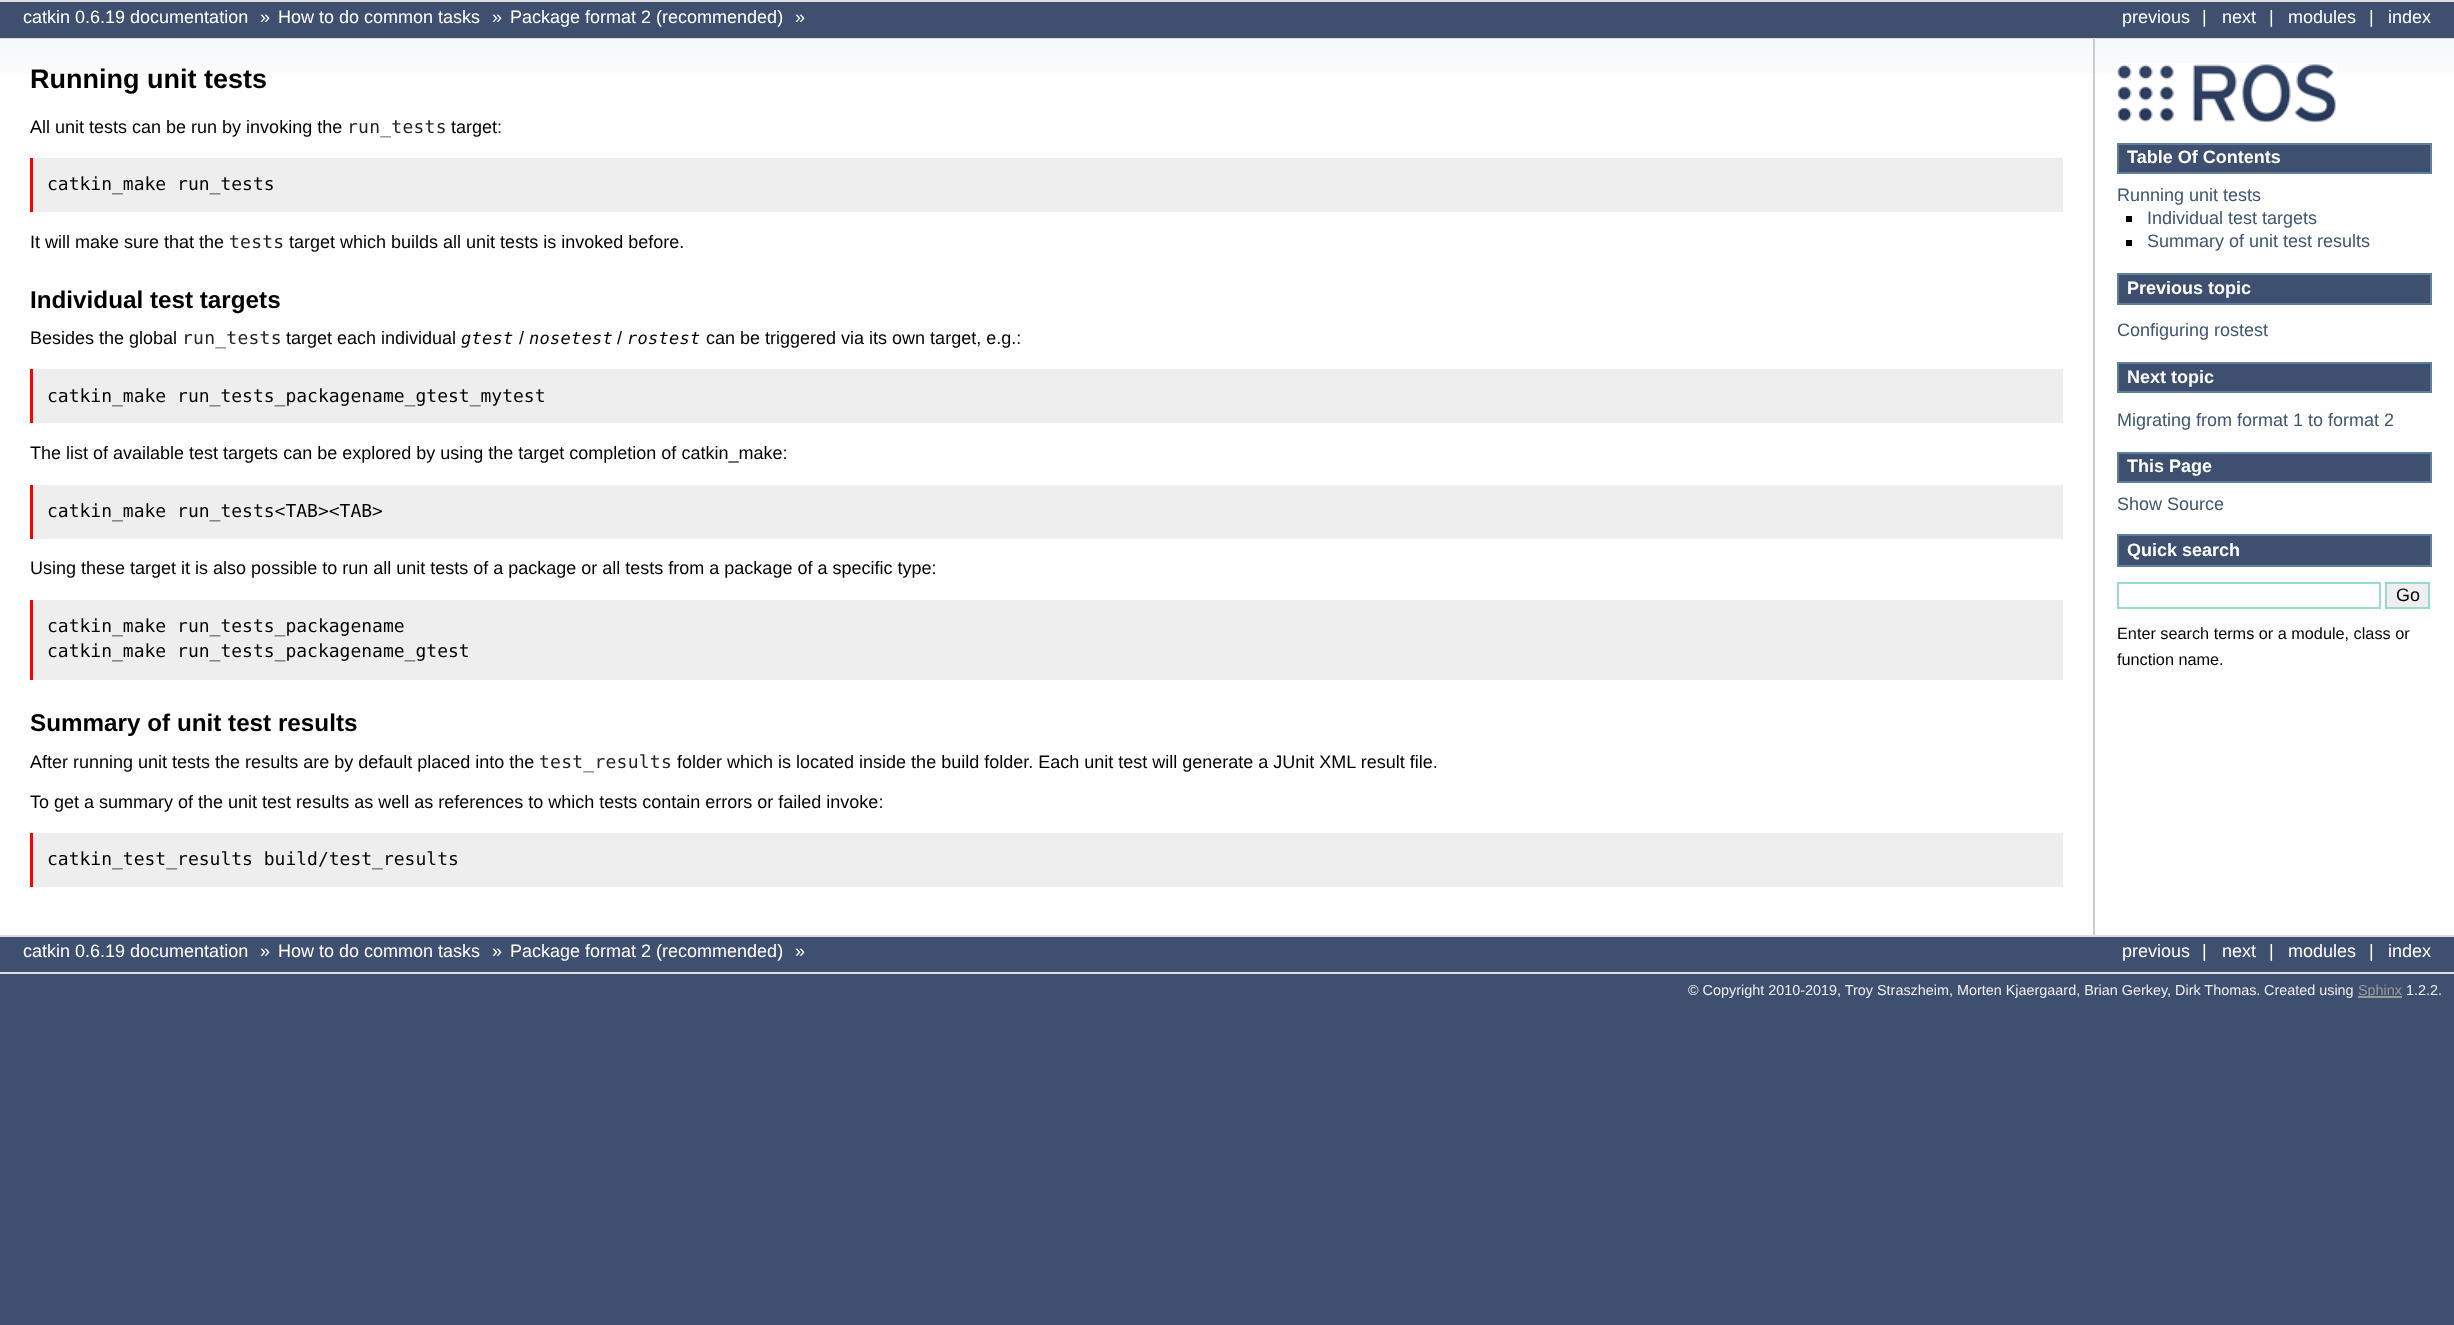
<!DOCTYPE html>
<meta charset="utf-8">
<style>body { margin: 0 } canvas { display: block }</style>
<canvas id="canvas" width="2454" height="1325"></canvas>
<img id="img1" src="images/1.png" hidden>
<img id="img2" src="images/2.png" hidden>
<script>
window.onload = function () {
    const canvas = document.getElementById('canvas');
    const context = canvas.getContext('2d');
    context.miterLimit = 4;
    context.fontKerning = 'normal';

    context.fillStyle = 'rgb(63, 79, 112)';
    context.fillRect(0, 0, 2454, 1325);
    context.fillStyle = 'rgb(221, 221, 221)';
    context.fillRect(0, 0, 2454, 2);
    context.fillRect(0, 38, 2454, 1);
    context.fillStyle = 'rgb(255, 255, 255)';
    context.fillRect(0, 73, 2454, 862);
    context.drawImage(document.getElementById('img1'), 0, 39, 2454, 34);
    context.fillStyle = 'rgb(204, 204, 204)';
    context.fillRect(2093, 39, 2, 896);
    context.fillStyle = 'rgb(238, 238, 239)';
    context.fillRect(33, 158, 2030, 54);
    context.fillStyle = 'rgb(255, 0, 0)';
    context.fillRect(30, 158, 3, 54);
    context.fillStyle = 'rgb(238, 238, 239)';
    context.fillRect(33, 369, 2030, 54);
    context.fillStyle = 'rgb(255, 0, 0)';
    context.fillRect(30, 369, 3, 54);
    context.fillStyle = 'rgb(238, 238, 239)';
    context.fillRect(33, 485, 2030, 54);
    context.fillStyle = 'rgb(255, 0, 0)';
    context.fillRect(30, 485, 3, 54);
    context.fillStyle = 'rgb(238, 238, 239)';
    context.fillRect(33, 600, 2030, 80);
    context.fillStyle = 'rgb(255, 0, 0)';
    context.fillRect(30, 600, 3, 80);
    context.fillStyle = 'rgb(238, 238, 239)';
    context.fillRect(33, 833, 2030, 54);
    context.fillStyle = 'rgb(255, 0, 0)';
    context.fillRect(30, 833, 3, 54);
    context.drawImage(document.getElementById('img2'), 2117, 63, 220, 60);
    context.fillStyle = 'rgb(63, 79, 112)';
    context.beginPath();
    context.rect(2118, 144, 313, 29);
    context.fill();
    context.strokeStyle = 'rgb(95, 127, 159)';
    context.lineWidth = 2;
    context.stroke();
    context.fillStyle = 'rgb(0, 0, 0)';
    context.fillRect(2126, 216, 6, 6);
    context.fillRect(2126, 240, 6, 6);
    context.fillStyle = 'rgb(63, 79, 112)';
    context.beginPath();
    context.rect(2118, 274, 313, 30);
    context.fill();
    context.stroke();
    context.beginPath();
    context.rect(2118, 363, 313, 29);
    context.fill();
    context.stroke();
    context.beginPath();
    context.rect(2118, 453, 313, 29);
    context.fill();
    context.stroke();
    context.beginPath();
    context.rect(2118, 535, 313, 31);
    context.fill();
    context.stroke();
    context.strokeStyle = 'rgb(152, 219, 204)';
    context.strokeRect(2118, 583, 262, 25);
    context.fillStyle = 'rgb(239, 239, 239)';
    context.beginPath();
    context.rect(2386, 583, 43, 25);
    context.fill();
    context.stroke();
    context.fillStyle = 'rgb(221, 221, 221)';
    context.fillRect(0, 935, 2454, 2);
    context.fillRect(0, 972, 2454, 2);
    context.fillStyle = 'rgb(153, 153, 153)';
    context.fillRect(2358, 996, 44, 2);
    context.font = '18px Liberation Sans';
    context.fillStyle = 'rgb(255, 255, 255)';
    context.fillText('catkin 0.6.19 documentation', 23, 23);
    context.fillText('»', 260, 23);
    context.fillText('How to do common tasks', 278, 23);
    context.fillText('»', 492, 23);
    context.fillText('Package format 2 (recommended)', 510, 23);
    context.fillText('»', 795, 23);
    context.fillText('previous', 2122, 23);
    context.fillText('|', 2202, 23);
    context.fillText('next', 2222, 23);
    context.fillText('|', 2269, 23);
    context.fillText('modules', 2288, 23);
    context.fillText('|', 2369, 23);
    context.fillText('index', 2388, 23);
    context.font = 'bold 27px Liberation Sans';
    context.fillStyle = 'rgb(0, 0, 0)';
    context.fillText('Running unit tests', 30, 88);
    context.font = '18px Liberation Sans';
    context.fillText('All unit tests can be run by invoking the', 30, 133);
    context.letterSpacing = '0.25px';
    context.font = '18px DejaVu Sans Mono';
    context.fillStyle = 'rgb(34, 34, 34)';
    context.fillText('run_tests', 347, 133);
    context.letterSpacing = '0px';
    context.font = '18px Liberation Sans';
    context.fillStyle = 'rgb(0, 0, 0)';
    context.fillText('target:', 451, 133);
    context.font = '18px DejaVu Sans Mono';
    context.fillText('catkin_make run_tests', 47, 190);
    context.font = '18px Liberation Sans';
    context.fillText('It will make sure that the', 30, 248);
    context.letterSpacing = '0.25px';
    context.font = '18px DejaVu Sans Mono';
    context.fillStyle = 'rgb(34, 34, 34)';
    context.fillText('tests', 229, 248);
    context.letterSpacing = '0px';
    context.font = '18px Liberation Sans';
    context.fillStyle = 'rgb(0, 0, 0)';
    context.fillText('target which builds all unit tests is invoked before.', 289, 248);
    context.font = 'bold 24.25px Liberation Sans';
    context.fillText('Individual test targets', 30, 308);
    context.font = '18px Liberation Sans';
    context.fillText('Besides the global', 30, 344);
    context.letterSpacing = '0.25px';
    context.font = '18px DejaVu Sans Mono';
    context.fillStyle = 'rgb(34, 34, 34)';
    context.fillText('run_tests', 182, 344);
    context.letterSpacing = '0px';
    context.font = '18px Liberation Sans';
    context.fillStyle = 'rgb(0, 0, 0)';
    context.fillText('target each individual', 286, 344);
    context.letterSpacing = '0.25px';
    context.font = 'italic 17px DejaVu Sans Mono';
    context.fillText('gtest', 461, 344);
    context.letterSpacing = '0px';
    context.font = '18px Liberation Sans';
    context.fillText('/', 519, 344);
    context.letterSpacing = '0.25px';
    context.font = 'italic 17px DejaVu Sans Mono';
    context.fillText('nosetest', 529, 344);
    context.letterSpacing = '0px';
    context.font = '18px Liberation Sans';
    context.fillText('/', 617, 344);
    context.letterSpacing = '0.25px';
    context.font = 'italic 17px DejaVu Sans Mono';
    context.fillText('rostest', 627, 344);
    context.letterSpacing = '0px';
    context.font = '18px Liberation Sans';
    context.fillText('can be triggered via its own target, e.g.:', 706, 344);
    context.font = '18px DejaVu Sans Mono';
    context.fillText('catkin_make run_tests_packagename_gtest_mytest', 47, 402);
    context.font = '18px Liberation Sans';
    context.fillText('The list of available test targets can be explored by using the target completion of catkin_make:', 30, 459);
    context.font = '18px DejaVu Sans Mono';
    context.fillText('catkin_make run_tests<TAB><TAB>', 47, 517);
    context.font = '18px Liberation Sans';
    context.fillText('Using these target it is also possible to run all unit tests of a package or all tests from a package of a specific type:', 30, 574);
    context.font = '18px DejaVu Sans Mono';
    context.fillText('catkin_make run_tests_packagename', 47, 632);
    context.fillText('catkin_make run_tests_packagename_gtest', 47, 657);
    context.font = 'bold 24.25px Liberation Sans';
    context.fillText('Summary of unit test results', 30, 731);
    context.font = '18px Liberation Sans';
    context.fillText('After running unit tests the results are by default placed into the', 30, 768);
    context.letterSpacing = '0.25px';
    context.font = '18px DejaVu Sans Mono';
    context.fillStyle = 'rgb(34, 34, 34)';
    context.fillText('test_results', 539, 768);
    context.letterSpacing = '0px';
    context.font = '18px Liberation Sans';
    context.fillStyle = 'rgb(0, 0, 0)';
    context.fillText('folder which is located inside the build folder. Each unit test will generate a JUnit XML result file.', 677, 768);
    context.fillText('To get a summary of the unit test results as well as references to which tests contain errors or failed invoke:', 30, 808);
    context.font = '18px DejaVu Sans Mono';
    context.fillText('catkin_test_results build/test_results', 47, 865);
    context.font = 'bold 18px Liberation Sans';
    context.fillStyle = 'rgb(255, 255, 255)';
    context.fillText('Table Of Contents', 2127, 163);
    context.font = '18px Liberation Sans';
    context.fillStyle = 'rgb(63, 85, 112)';
    context.fillText('Running unit tests', 2117, 201);
    context.fillText('Individual test targets', 2147, 224);
    context.fillText('Summary of unit test results', 2147, 247);
    context.font = 'bold 18px Liberation Sans';
    context.fillStyle = 'rgb(255, 255, 255)';
    context.fillText('Previous topic', 2127, 294);
    context.font = '18px Liberation Sans';
    context.fillStyle = 'rgb(63, 85, 112)';
    context.fillText('Configuring rostest', 2117, 336);
    context.font = 'bold 18px Liberation Sans';
    context.fillStyle = 'rgb(255, 255, 255)';
    context.fillText('Next topic', 2127, 383);
    context.font = '18px Liberation Sans';
    context.fillStyle = 'rgb(63, 85, 112)';
    context.fillText('Migrating from format 1 to format 2', 2117, 426);
    context.font = 'bold 18px Liberation Sans';
    context.fillStyle = 'rgb(255, 255, 255)';
    context.fillText('This Page', 2127, 472);
    context.font = '18px Liberation Sans';
    context.fillStyle = 'rgb(63, 85, 112)';
    context.fillText('Show Source', 2117, 510);
    context.font = 'bold 18px Liberation Sans';
    context.fillStyle = 'rgb(255, 255, 255)';
    context.fillText('Quick search', 2127, 556);
    context.font = '18px Liberation Sans';
    context.fillStyle = 'rgb(0, 0, 0)';
    context.fillText('Go', 2396, 601);
    context.font = '16.25px Liberation Sans';
    context.fillText('Enter search terms or a module, class or', 2117, 639);
    context.fillText('function name.', 2117, 665);
    context.font = '18px Liberation Sans';
    context.fillStyle = 'rgb(255, 255, 255)';
    context.fillText('catkin 0.6.19 documentation', 23, 957);
    context.fillText('»', 260, 957);
    context.fillText('How to do common tasks', 278, 957);
    context.fillText('»', 492, 957);
    context.fillText('Package format 2 (recommended)', 510, 957);
    context.fillText('»', 795, 957);
    context.fillText('previous', 2122, 957);
    context.fillText('|', 2202, 957);
    context.fillText('next', 2222, 957);
    context.fillText('|', 2269, 957);
    context.fillText('modules', 2288, 957);
    context.fillText('|', 2369, 957);
    context.fillText('index', 2388, 957);
    context.font = '14.4px Liberation Sans';
    context.fillStyle = 'rgb(238, 238, 238)';
    context.fillText('© Copyright 2010-2019, Troy Straszheim, Morten Kjaergaard, Brian Gerkey, Dirk Thomas.', 1688, 995);
    context.fillText('Created using', 2264, 995);
    context.fillStyle = 'rgb(153, 153, 153)';
    context.fillText('Sphinx', 2358, 995);
    context.fillStyle = 'rgb(238, 238, 238)';
    context.fillText('1.2.2.', 2406, 995);
};
</script>
